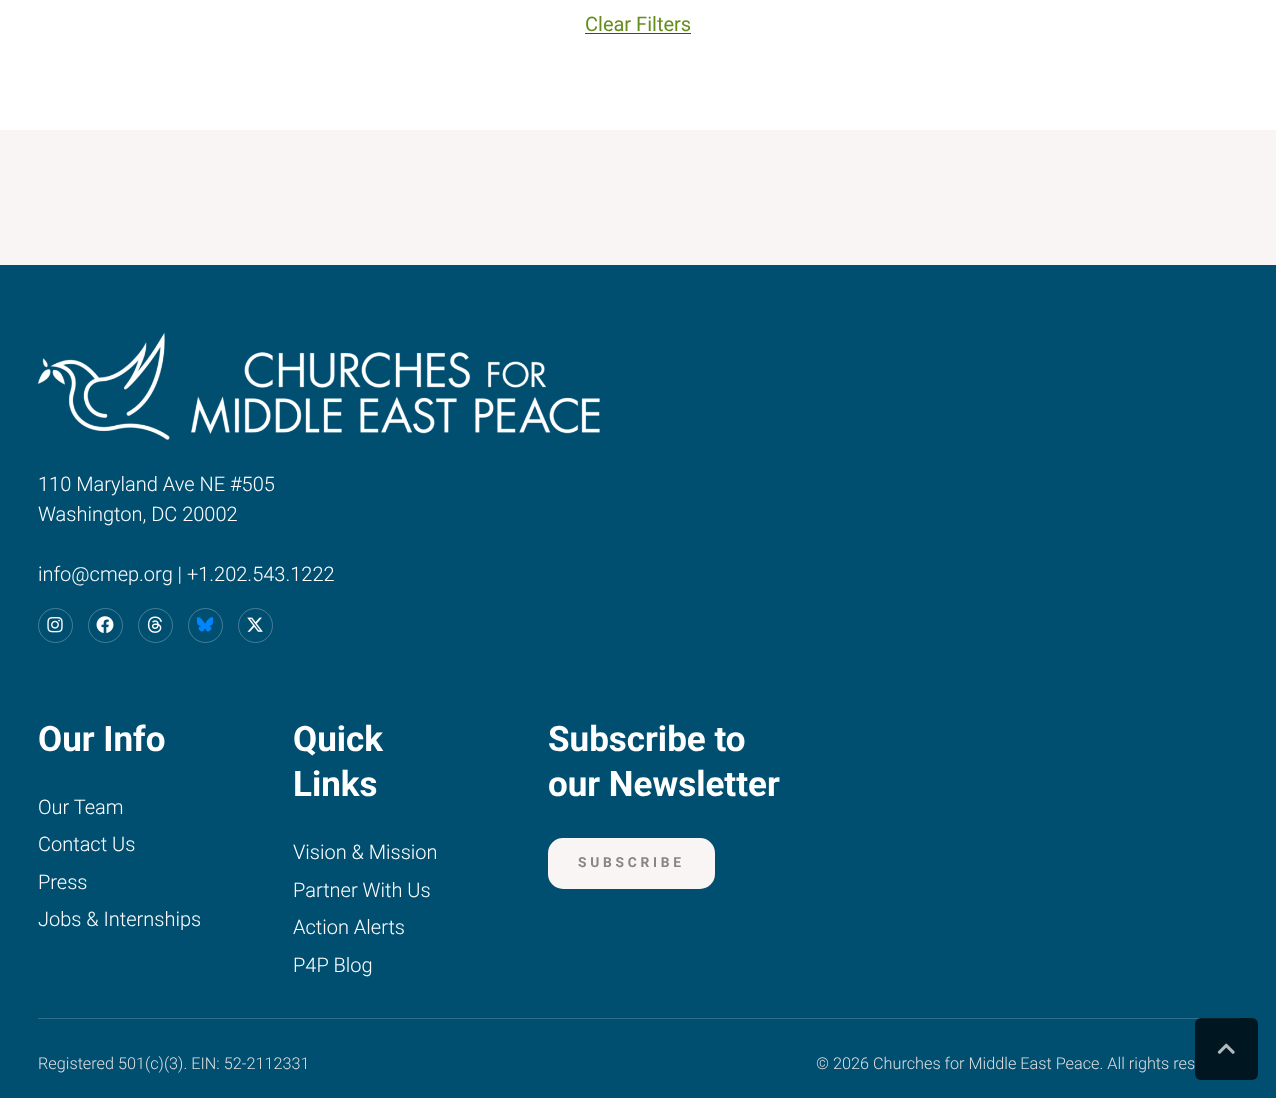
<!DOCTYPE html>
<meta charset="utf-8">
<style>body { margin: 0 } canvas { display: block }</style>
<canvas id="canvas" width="1276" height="1098"></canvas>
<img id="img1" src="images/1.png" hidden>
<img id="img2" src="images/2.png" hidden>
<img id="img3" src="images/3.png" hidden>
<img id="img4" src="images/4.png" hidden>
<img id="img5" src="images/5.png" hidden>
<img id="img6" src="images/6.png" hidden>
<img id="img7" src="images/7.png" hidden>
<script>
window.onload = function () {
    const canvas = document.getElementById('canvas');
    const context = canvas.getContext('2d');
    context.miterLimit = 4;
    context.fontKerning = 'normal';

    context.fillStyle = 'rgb(255, 255, 255)';
    context.fillRect(0, 0, 1276, 1098);
    context.fillStyle = 'rgb(67, 67, 67)';
    context.fillRect(585, 33, 106, 1);
    context.fillStyle = 'rgb(248, 245, 244)';
    context.fillRect(0, 130, 1276, 135);
    context.fillStyle = 'rgb(0, 79, 113)';
    context.fillRect(0, 265, 1276, 833);
    context.drawImage(document.getElementById('img1'), 37, 332, 563, 108);
    context.beginPath();
    context.arc(55.5, 625.5, 17, 0, 2 * Math.PI);
    context.strokeStyle = 'rgb(69, 127, 151)';
    context.stroke();
    context.drawImage(document.getElementById('img2'), 47, 617, 16, 16);
    context.beginPath();
    context.arc(105.5, 625.5, 17, 0, 2 * Math.PI);
    context.stroke();
    context.drawImage(document.getElementById('img3'), 96, 616, 18, 17);
    context.beginPath();
    context.arc(155.5, 625.5, 17, 0, 2 * Math.PI);
    context.stroke();
    context.drawImage(document.getElementById('img4'), 147, 616, 15, 17);
    context.beginPath();
    context.arc(205.5, 625.5, 17, 0, 2 * Math.PI);
    context.stroke();
    context.drawImage(document.getElementById('img5'), 196, 617, 18, 15);
    context.beginPath();
    context.arc(255.5, 625.5, 17, 0, 2 * Math.PI);
    context.stroke();
    context.drawImage(document.getElementById('img6'), 247, 617, 16, 15);
    context.fillStyle = 'rgb(248, 245, 244)';
    context.beginPath();
    context.roundRect(548, 838, 167, 51, 15);
    context.fill();
    context.fillStyle = 'rgb(48, 112, 140)';
    context.fillRect(38, 1018, 1201, 1);
    context.fillStyle = 'rgba(0, 0, 0, 0.7)';
    context.beginPath();
    context.roundRect(1195, 1018, 63, 62, 6);
    context.fill();
    context.drawImage(document.getElementById('img7'), 1217, 1043, 18, 11);
    context.font = '20px Roboto';
    context.fillStyle = 'rgb(101, 141, 27)';
    context.fillText('Clear Filters', 585, 31);
    context.font = '300 20px Roboto';
    context.fillStyle = 'rgb(255, 255, 255)';
    context.fillText('110 Maryland Ave NE #505', 38, 491);
    context.fillText('Washington, DC 20002', 38, 521);
    context.fillText('info@cmep.org | +1.202.543.1222', 38, 581);
    context.font = 'bold 35px Roboto';
    context.fillText('Our Info', 38, 751);
    context.font = '300 20px Roboto';
    context.fillText('Our Team', 38, 814);
    context.fillText('Contact Us', 38, 851);
    context.fillText('Press', 38, 889);
    context.fillText('Jobs & Internships', 38, 926);
    context.font = 'bold 35px Roboto';
    context.fillText('Quick', 293, 751);
    context.fillText('Links', 293, 796);
    context.font = '300 20px Roboto';
    context.fillText('Vision & Mission', 293, 859);
    context.fillText('Partner With Us', 293, 897);
    context.fillText('Action Alerts', 293, 934);
    context.fillText('P4P Blog', 293, 972);
    context.font = 'bold 35px Roboto';
    context.fillText('Subscribe to', 548, 751);
    context.fillText('our Newsletter', 548, 796);
    context.letterSpacing = '3.75px';
    context.font = 'bold 13.75px Roboto';
    context.fillStyle = 'rgb(134, 134, 134)';
    context.fillText('SUBSCRIBE', 578, 867);
    context.letterSpacing = '0px';
    context.font = '300 16.25px Roboto';
    context.fillStyle = 'rgb(222, 222, 222)';
    context.fillText('Registered 501(c)(3). EIN: 52-2112331', 38, 1069);
    context.fillText('© 2026 Churches for Middle East Peace. All rights res', 816, 1069);
};
</script>
